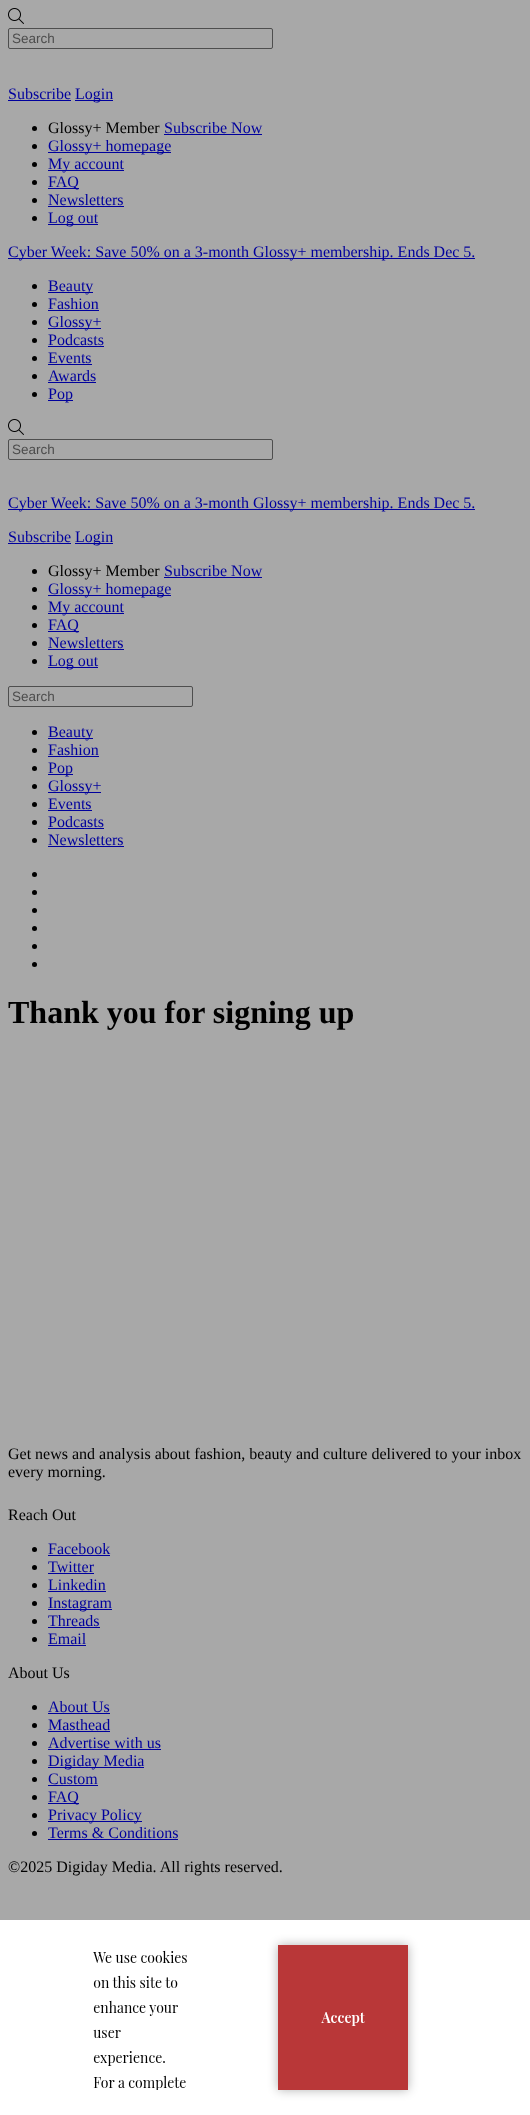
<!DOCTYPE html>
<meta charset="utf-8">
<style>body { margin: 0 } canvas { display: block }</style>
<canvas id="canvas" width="530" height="2115"></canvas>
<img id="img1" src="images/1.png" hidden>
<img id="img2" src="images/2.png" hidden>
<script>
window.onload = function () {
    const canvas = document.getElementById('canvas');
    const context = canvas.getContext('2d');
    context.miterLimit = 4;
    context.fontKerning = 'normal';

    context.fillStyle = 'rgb(168, 168, 168)';
    context.fillRect(0, 0, 530, 2115);
    context.drawImage(document.getElementById('img1'), 8, 8, 16, 16);
    context.beginPath();
    context.roundRect(8.5, 28.5, 264, 20, 1.5);
    context.strokeStyle = 'rgb(78, 78, 78)';
    context.stroke();
    context.fillStyle = 'rgb(0, 0, 157)';
    context.fillRect(8, 100, 63, 1);
    context.fillRect(75, 100, 38, 1);
    context.fillStyle = 'rgb(0, 0, 0)';
    context.beginPath();
    context.arc(34.5, 128.5, 2.5, 0, 2 * Math.PI);
    context.fill();
    context.fillStyle = 'rgb(0, 0, 157)';
    context.fillRect(164, 134, 98, 1);
    context.fillStyle = 'rgb(0, 0, 0)';
    context.beginPath();
    context.arc(34.5, 146.5, 2.5, 0, 2 * Math.PI);
    context.fill();
    context.fillStyle = 'rgb(0, 0, 157)';
    context.fillRect(48, 152, 123, 1);
    context.fillStyle = 'rgb(0, 0, 0)';
    context.beginPath();
    context.arc(34.5, 164.5, 2.5, 0, 2 * Math.PI);
    context.fill();
    context.fillStyle = 'rgb(0, 0, 157)';
    context.fillRect(48, 170, 76, 1);
    context.fillStyle = 'rgb(0, 0, 0)';
    context.beginPath();
    context.arc(34.5, 182.5, 2.5, 0, 2 * Math.PI);
    context.fill();
    context.fillStyle = 'rgb(0, 0, 157)';
    context.fillRect(48, 188, 31, 1);
    context.fillStyle = 'rgb(0, 0, 0)';
    context.beginPath();
    context.arc(34.5, 200.5, 2.5, 0, 2 * Math.PI);
    context.fill();
    context.fillStyle = 'rgb(0, 0, 157)';
    context.fillRect(48, 206, 76, 1);
    context.fillStyle = 'rgb(0, 0, 0)';
    context.beginPath();
    context.arc(34.5, 218.5, 2.5, 0, 2 * Math.PI);
    context.fill();
    context.fillStyle = 'rgb(0, 0, 157)';
    context.fillRect(48, 224, 50, 1);
    context.fillRect(8, 258, 467, 1);
    context.fillStyle = 'rgb(0, 0, 0)';
    context.beginPath();
    context.arc(34.5, 286.5, 2.5, 0, 2 * Math.PI);
    context.fill();
    context.fillStyle = 'rgb(0, 0, 157)';
    context.fillRect(48, 292, 45, 1);
    context.fillStyle = 'rgb(0, 0, 0)';
    context.beginPath();
    context.arc(34.5, 304.5, 2.5, 0, 2 * Math.PI);
    context.fill();
    context.fillStyle = 'rgb(0, 0, 157)';
    context.fillRect(48, 310, 51, 1);
    context.fillStyle = 'rgb(0, 0, 0)';
    context.beginPath();
    context.arc(34.5, 322.5, 2.5, 0, 2 * Math.PI);
    context.fill();
    context.fillStyle = 'rgb(0, 0, 157)';
    context.fillRect(48, 328, 53, 1);
    context.fillStyle = 'rgb(0, 0, 0)';
    context.beginPath();
    context.arc(34.5, 340.5, 2.5, 0, 2 * Math.PI);
    context.fill();
    context.fillStyle = 'rgb(0, 0, 157)';
    context.fillRect(48, 346, 56, 1);
    context.fillStyle = 'rgb(0, 0, 0)';
    context.beginPath();
    context.arc(34.5, 358.5, 2.5, 0, 2 * Math.PI);
    context.fill();
    context.fillStyle = 'rgb(0, 0, 157)';
    context.fillRect(48, 364, 44, 1);
    context.fillStyle = 'rgb(0, 0, 0)';
    context.beginPath();
    context.arc(34.5, 376.5, 2.5, 0, 2 * Math.PI);
    context.fill();
    context.fillStyle = 'rgb(0, 0, 157)';
    context.fillRect(48, 382, 48, 1);
    context.fillStyle = 'rgb(0, 0, 0)';
    context.beginPath();
    context.arc(34.5, 394.5, 2.5, 0, 2 * Math.PI);
    context.fill();
    context.fillStyle = 'rgb(0, 0, 157)';
    context.fillRect(48, 400, 25, 1);
    context.drawImage(document.getElementById('img1'), 8, 419, 16, 16);
    context.beginPath();
    context.roundRect(8.5, 439.5, 264, 20, 1.5);
    context.stroke();
    context.fillRect(8, 509, 467, 1);
    context.fillRect(8, 543, 63, 1);
    context.fillRect(75, 543, 38, 1);
    context.fillStyle = 'rgb(0, 0, 0)';
    context.beginPath();
    context.arc(34.5, 571.5, 2.5, 0, 2 * Math.PI);
    context.fill();
    context.fillStyle = 'rgb(0, 0, 157)';
    context.fillRect(164, 577, 98, 1);
    context.fillStyle = 'rgb(0, 0, 0)';
    context.beginPath();
    context.arc(34.5, 589.5, 2.5, 0, 2 * Math.PI);
    context.fill();
    context.fillStyle = 'rgb(0, 0, 157)';
    context.fillRect(48, 595, 123, 1);
    context.fillStyle = 'rgb(0, 0, 0)';
    context.beginPath();
    context.arc(34.5, 607.5, 2.5, 0, 2 * Math.PI);
    context.fill();
    context.fillStyle = 'rgb(0, 0, 157)';
    context.fillRect(48, 613, 76, 1);
    context.fillStyle = 'rgb(0, 0, 0)';
    context.beginPath();
    context.arc(34.5, 625.5, 2.5, 0, 2 * Math.PI);
    context.fill();
    context.fillStyle = 'rgb(0, 0, 157)';
    context.fillRect(48, 631, 31, 1);
    context.fillStyle = 'rgb(0, 0, 0)';
    context.beginPath();
    context.arc(34.5, 643.5, 2.5, 0, 2 * Math.PI);
    context.fill();
    context.fillStyle = 'rgb(0, 0, 157)';
    context.fillRect(48, 649, 76, 1);
    context.fillStyle = 'rgb(0, 0, 0)';
    context.beginPath();
    context.arc(34.5, 661.5, 2.5, 0, 2 * Math.PI);
    context.fill();
    context.fillStyle = 'rgb(0, 0, 157)';
    context.fillRect(48, 667, 50, 1);
    context.beginPath();
    context.roundRect(8.5, 686.5, 184, 20, 1.5);
    context.stroke();
    context.fillStyle = 'rgb(0, 0, 0)';
    context.beginPath();
    context.arc(34.5, 732.5, 2.5, 0, 2 * Math.PI);
    context.fill();
    context.fillStyle = 'rgb(0, 0, 157)';
    context.fillRect(48, 738, 45, 1);
    context.fillStyle = 'rgb(0, 0, 0)';
    context.beginPath();
    context.arc(34.5, 750.5, 2.5, 0, 2 * Math.PI);
    context.fill();
    context.fillStyle = 'rgb(0, 0, 157)';
    context.fillRect(48, 756, 51, 1);
    context.fillStyle = 'rgb(0, 0, 0)';
    context.beginPath();
    context.arc(34.5, 768.5, 2.5, 0, 2 * Math.PI);
    context.fill();
    context.fillStyle = 'rgb(0, 0, 157)';
    context.fillRect(48, 774, 25, 1);
    context.fillStyle = 'rgb(0, 0, 0)';
    context.beginPath();
    context.arc(34.5, 786.5, 2.5, 0, 2 * Math.PI);
    context.fill();
    context.fillStyle = 'rgb(0, 0, 157)';
    context.fillRect(48, 792, 53, 1);
    context.fillStyle = 'rgb(0, 0, 0)';
    context.beginPath();
    context.arc(34.5, 804.5, 2.5, 0, 2 * Math.PI);
    context.fill();
    context.fillStyle = 'rgb(0, 0, 157)';
    context.fillRect(48, 810, 44, 1);
    context.fillStyle = 'rgb(0, 0, 0)';
    context.beginPath();
    context.arc(34.5, 822.5, 2.5, 0, 2 * Math.PI);
    context.fill();
    context.fillStyle = 'rgb(0, 0, 157)';
    context.fillRect(48, 828, 56, 1);
    context.fillStyle = 'rgb(0, 0, 0)';
    context.beginPath();
    context.arc(34.5, 840.5, 2.5, 0, 2 * Math.PI);
    context.fill();
    context.fillStyle = 'rgb(0, 0, 157)';
    context.fillRect(48, 846, 76, 1);
    context.fillStyle = 'rgb(0, 0, 0)';
    context.beginPath();
    context.arc(34.5, 874.5, 2.5, 0, 2 * Math.PI);
    context.fill();
    context.beginPath();
    context.arc(34.5, 892.5, 2.5, 0, 2 * Math.PI);
    context.fill();
    context.beginPath();
    context.arc(34.5, 910.5, 2.5, 0, 2 * Math.PI);
    context.fill();
    context.beginPath();
    context.arc(34.5, 928.5, 2.5, 0, 2 * Math.PI);
    context.fill();
    context.beginPath();
    context.arc(34.5, 946.5, 2.5, 0, 2 * Math.PI);
    context.fill();
    context.beginPath();
    context.arc(34.5, 964.5, 2.5, 0, 2 * Math.PI);
    context.fill();
    context.beginPath();
    context.arc(34.5, 1549.5, 2.5, 0, 2 * Math.PI);
    context.fill();
    context.fillStyle = 'rgb(0, 0, 157)';
    context.fillRect(48, 1555, 62, 1);
    context.fillStyle = 'rgb(0, 0, 0)';
    context.beginPath();
    context.arc(34.5, 1567.5, 2.5, 0, 2 * Math.PI);
    context.fill();
    context.fillStyle = 'rgb(0, 0, 157)';
    context.fillRect(48, 1573, 46, 1);
    context.fillStyle = 'rgb(0, 0, 0)';
    context.beginPath();
    context.arc(34.5, 1585.5, 2.5, 0, 2 * Math.PI);
    context.fill();
    context.fillStyle = 'rgb(0, 0, 157)';
    context.fillRect(48, 1591, 58, 1);
    context.fillStyle = 'rgb(0, 0, 0)';
    context.beginPath();
    context.arc(34.5, 1603.5, 2.5, 0, 2 * Math.PI);
    context.fill();
    context.fillStyle = 'rgb(0, 0, 157)';
    context.fillRect(48, 1609, 64, 1);
    context.fillStyle = 'rgb(0, 0, 0)';
    context.beginPath();
    context.arc(34.5, 1621.5, 2.5, 0, 2 * Math.PI);
    context.fill();
    context.fillStyle = 'rgb(0, 0, 157)';
    context.fillRect(48, 1627, 52, 1);
    context.fillStyle = 'rgb(0, 0, 0)';
    context.beginPath();
    context.arc(34.5, 1639.5, 2.5, 0, 2 * Math.PI);
    context.fill();
    context.fillStyle = 'rgb(0, 0, 157)';
    context.fillRect(48, 1645, 38, 1);
    context.fillStyle = 'rgb(0, 0, 0)';
    context.beginPath();
    context.arc(34.5, 1707.5, 2.5, 0, 2 * Math.PI);
    context.fill();
    context.fillStyle = 'rgb(0, 0, 157)';
    context.fillRect(48, 1713, 62, 1);
    context.fillStyle = 'rgb(0, 0, 0)';
    context.beginPath();
    context.arc(34.5, 1725.5, 2.5, 0, 2 * Math.PI);
    context.fill();
    context.fillStyle = 'rgb(0, 0, 157)';
    context.fillRect(48, 1731, 62, 1);
    context.fillStyle = 'rgb(0, 0, 0)';
    context.beginPath();
    context.arc(34.5, 1743.5, 2.5, 0, 2 * Math.PI);
    context.fill();
    context.fillStyle = 'rgb(0, 0, 157)';
    context.fillRect(48, 1749, 113, 1);
    context.fillStyle = 'rgb(0, 0, 0)';
    context.beginPath();
    context.arc(34.5, 1761.5, 2.5, 0, 2 * Math.PI);
    context.fill();
    context.fillStyle = 'rgb(0, 0, 157)';
    context.fillRect(48, 1767, 96, 1);
    context.fillStyle = 'rgb(0, 0, 0)';
    context.beginPath();
    context.arc(34.5, 1779.5, 2.5, 0, 2 * Math.PI);
    context.fill();
    context.fillStyle = 'rgb(0, 0, 157)';
    context.fillRect(48, 1785, 50, 1);
    context.fillStyle = 'rgb(0, 0, 0)';
    context.beginPath();
    context.arc(34.5, 1797.5, 2.5, 0, 2 * Math.PI);
    context.fill();
    context.fillStyle = 'rgb(0, 0, 157)';
    context.fillRect(48, 1803, 31, 1);
    context.fillStyle = 'rgb(0, 0, 0)';
    context.beginPath();
    context.arc(34.5, 1815.5, 2.5, 0, 2 * Math.PI);
    context.fill();
    context.fillStyle = 'rgb(0, 0, 157)';
    context.fillRect(48, 1821, 94, 1);
    context.fillStyle = 'rgb(0, 0, 0)';
    context.beginPath();
    context.arc(34.5, 1833.5, 2.5, 0, 2 * Math.PI);
    context.fill();
    context.fillStyle = 'rgb(0, 0, 157)';
    context.fillRect(48, 1839, 130, 1);
    context.drawImage(document.getElementById('img2'), 0, 1920, 530, 195);
    context.font = '13.5px Liberation Sans';
    context.fillStyle = 'rgb(77, 77, 77)';
    context.fillText('Search', 12, 43);
    context.font = '16px Liberation Serif';
    context.fillStyle = 'rgb(0, 0, 157)';
    context.fillText('Subscribe', 8, 99);
    context.fillText('Login', 75, 99);
    context.fillStyle = 'rgb(0, 0, 0)';
    context.fillText('Glossy+ Member', 48, 133);
    context.fillStyle = 'rgb(0, 0, 157)';
    context.fillText('Subscribe Now', 164, 133);
    context.fillText('Glossy+ homepage', 48, 151);
    context.fillText('My account', 48, 169);
    context.fillText('FAQ', 48, 187);
    context.fillText('Newsletters', 48, 205);
    context.fillText('Log out', 48, 223);
    context.fillText('Cyber Week: Save 50% on a 3-month Glossy+ membership. Ends Dec 5.', 8, 257);
    context.fillText('Beauty', 48, 291);
    context.fillText('Fashion', 48, 309);
    context.fillText('Glossy+', 48, 327);
    context.fillText('Podcasts', 48, 345);
    context.fillText('Events', 48, 363);
    context.fillText('Awards', 48, 381);
    context.fillText('Pop', 48, 399);
    context.font = '13.5px Liberation Sans';
    context.fillStyle = 'rgb(77, 77, 77)';
    context.fillText('Search', 12, 454);
    context.font = '16px Liberation Serif';
    context.fillStyle = 'rgb(0, 0, 157)';
    context.fillText('Cyber Week: Save 50% on a 3-month Glossy+ membership. Ends Dec 5.', 8, 508);
    context.fillText('Subscribe', 8, 542);
    context.fillText('Login', 75, 542);
    context.fillStyle = 'rgb(0, 0, 0)';
    context.fillText('Glossy+ Member', 48, 576);
    context.fillStyle = 'rgb(0, 0, 157)';
    context.fillText('Subscribe Now', 164, 576);
    context.fillText('Glossy+ homepage', 48, 594);
    context.fillText('My account', 48, 612);
    context.fillText('FAQ', 48, 630);
    context.fillText('Newsletters', 48, 648);
    context.fillText('Log out', 48, 666);
    context.font = '13.5px Liberation Sans';
    context.fillStyle = 'rgb(77, 77, 77)';
    context.fillText('Search', 12, 701);
    context.font = '16px Liberation Serif';
    context.fillStyle = 'rgb(0, 0, 157)';
    context.fillText('Beauty', 48, 737);
    context.fillText('Fashion', 48, 755);
    context.fillText('Pop', 48, 773);
    context.fillText('Glossy+', 48, 791);
    context.fillText('Events', 48, 809);
    context.fillText('Podcasts', 48, 827);
    context.fillText('Newsletters', 48, 845);
    context.font = 'bold 32px Liberation Serif';
    context.fillStyle = 'rgb(0, 0, 0)';
    context.fillText('Thank you for signing up', 8, 1023);
    context.font = '16px Liberation Serif';
    context.fillText('Get news and analysis about fashion, beauty and culture delivered to your inbox', 8, 1459);
    context.fillText('every morning.', 8, 1477);
    context.fillText('Reach Out', 8, 1520);
    context.fillStyle = 'rgb(0, 0, 157)';
    context.fillText('Facebook', 48, 1554);
    context.fillText('Twitter', 48, 1572);
    context.fillText('Linkedin', 48, 1590);
    context.fillText('Instagram', 48, 1608);
    context.fillText('Threads', 48, 1626);
    context.fillText('Email', 48, 1644);
    context.fillStyle = 'rgb(0, 0, 0)';
    context.fillText('About Us', 8, 1678);
    context.fillStyle = 'rgb(0, 0, 157)';
    context.fillText('About Us', 48, 1712);
    context.fillText('Masthead', 48, 1730);
    context.fillText('Advertise with us', 48, 1748);
    context.fillText('Digiday Media', 48, 1766);
    context.fillText('Custom', 48, 1784);
    context.fillText('FAQ', 48, 1802);
    context.fillText('Privacy Policy', 48, 1820);
    context.fillText('Terms & Conditions', 48, 1838);
    context.fillStyle = 'rgb(0, 0, 0)';
    context.fillText('©2025 Digiday Media. All rights reserved.', 8, 1872);
};
</script>
